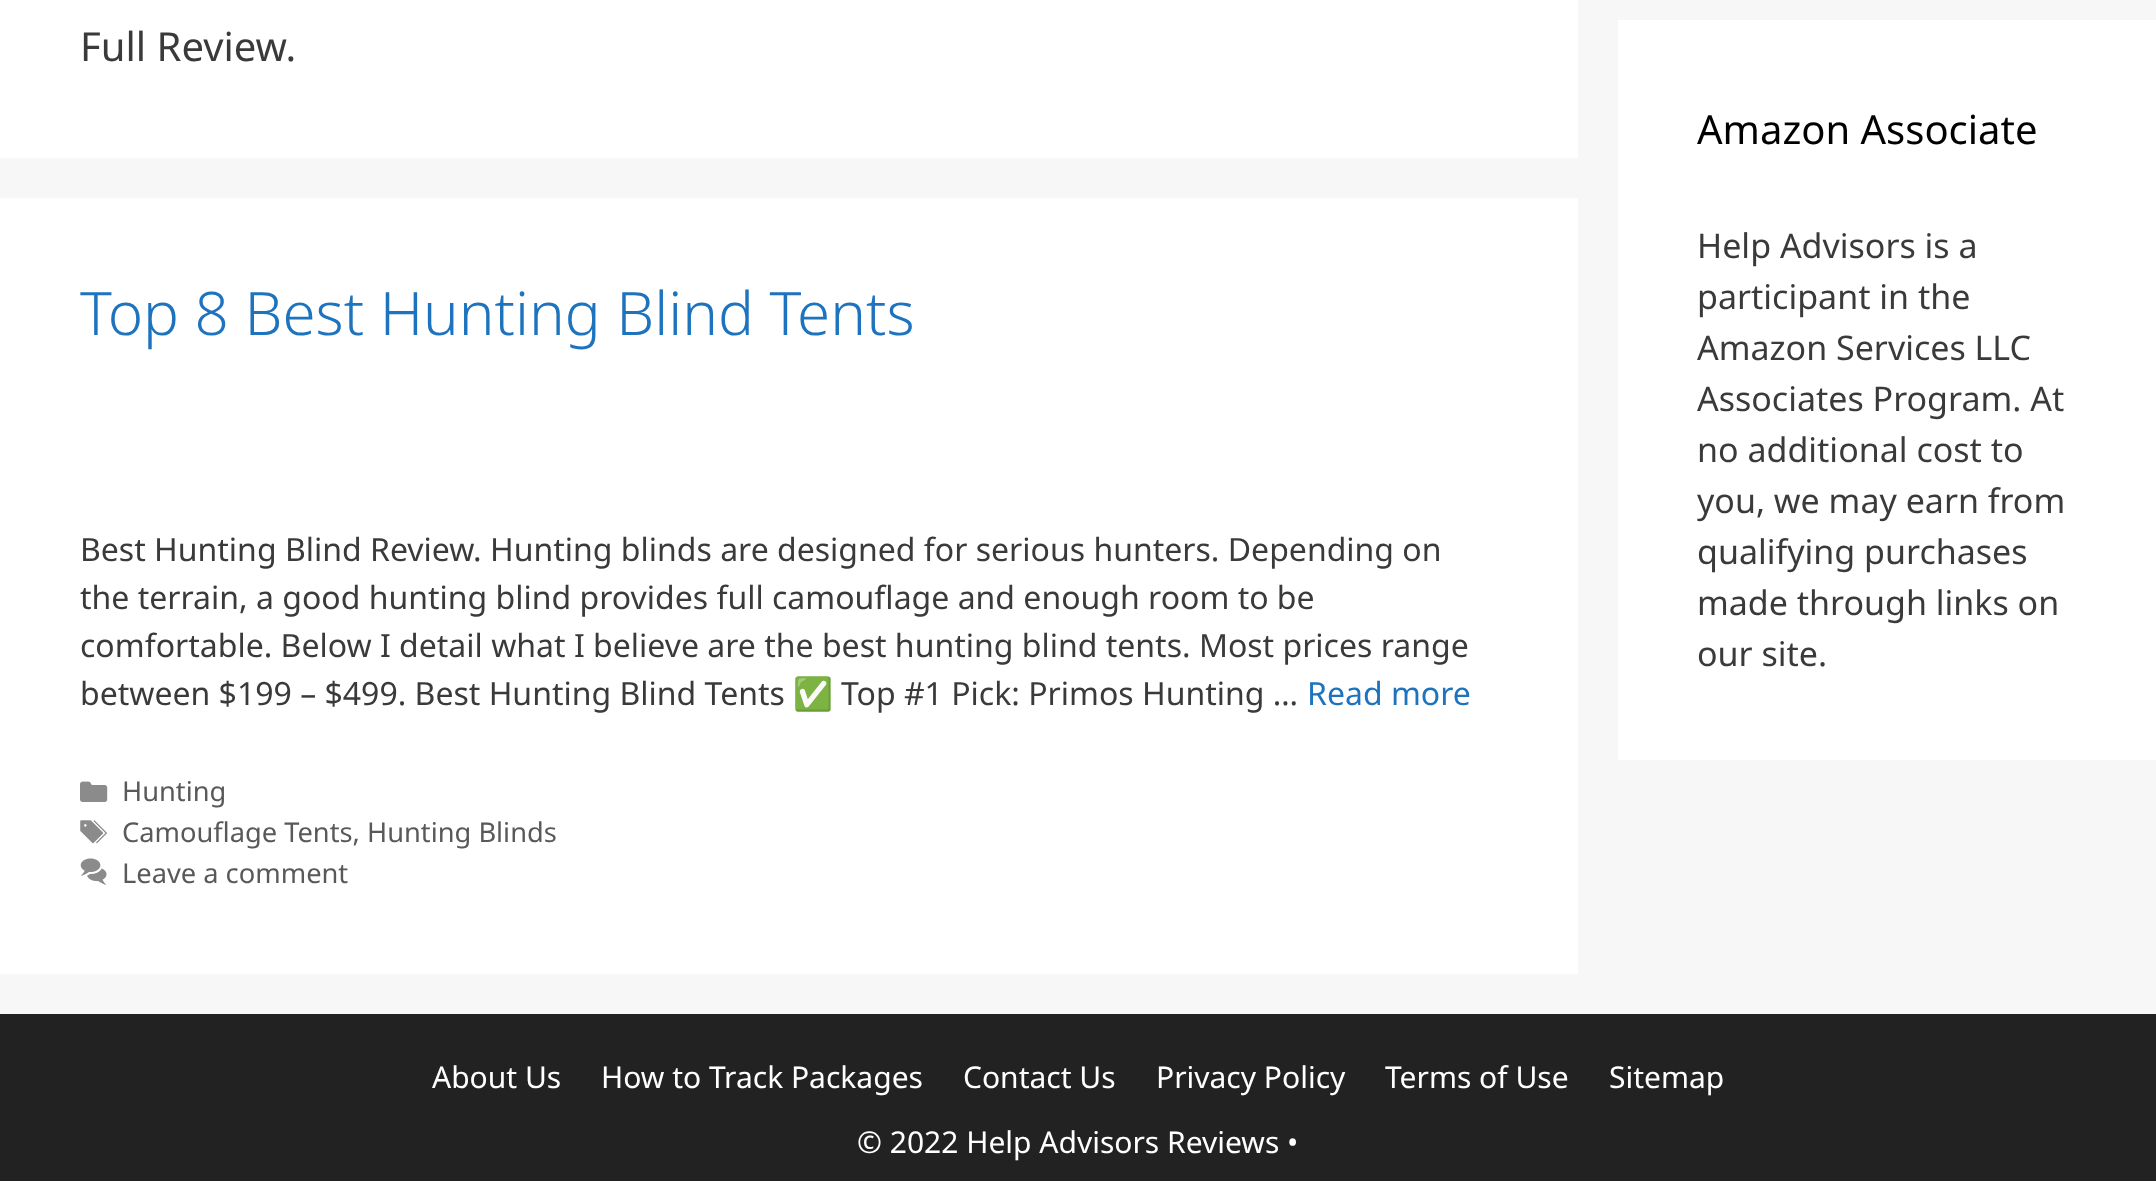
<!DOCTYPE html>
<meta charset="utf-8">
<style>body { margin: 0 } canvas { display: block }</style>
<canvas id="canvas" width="2156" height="1181"></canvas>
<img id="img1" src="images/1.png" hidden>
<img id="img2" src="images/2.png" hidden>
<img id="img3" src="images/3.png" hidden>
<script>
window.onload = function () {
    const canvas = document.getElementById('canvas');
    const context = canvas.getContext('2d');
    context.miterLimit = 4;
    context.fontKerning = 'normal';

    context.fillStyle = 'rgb(247, 247, 247)';
    context.fillRect(0, 0, 2156, 1181);
    context.fillStyle = 'rgb(255, 255, 255)';
    context.fillRect(0, 0, 1578, 158);
    context.fillRect(0, 198, 1578, 776);
    context.drawImage(document.getElementById('img1'), 80, 781, 28, 21);
    context.drawImage(document.getElementById('img2'), 80, 820, 27, 24);
    context.drawImage(document.getElementById('img3'), 80, 858, 27, 27);
    context.fillRect(1618, 20, 538, 740);
    context.fillStyle = 'rgb(34, 34, 34)';
    context.fillRect(0, 1014, 2156, 167);
    context.font = '40px Noto Sans';
    context.fillStyle = 'rgb(58, 58, 58)';
    context.fillText('Full Review.', 80, 61);
    context.font = '300 60px Noto Sans';
    context.fillStyle = 'rgb(30, 115, 190)';
    context.fillText('Top 8 Best Hunting Blind Tents', 80, 335);
    context.font = '32px Noto Sans';
    context.fillStyle = 'rgb(58, 58, 58)';
    context.fillText('Best Hunting Blind Review. Hunting blinds are designed for serious hunters. Depending on', 80, 561);
    context.fillText('the terrain, a good hunting blind provides full camouflage and enough room to be', 80, 609);
    context.fillText('comfortable. Below I detail what I believe are the best hunting blind tents. Most prices range', 80, 657);
    context.fillText('between $199 – $499. Best Hunting Blind Tents', 80, 705);
    context.font = '32px Noto Color Emoji';
    context.fillText('✅', 793, 705);
    context.font = '32px Noto Sans';
    context.fillText('Top #1 Pick: Primos Hunting …', 841, 705);
    context.fillStyle = 'rgb(30, 115, 190)';
    context.fillText('Read more', 1307, 705);
    context.font = '27.25px Noto Sans';
    context.fillStyle = 'rgb(89, 89, 89)';
    context.fillText('Hunting', 122, 801);
    context.fillText('Camouflage Tents, Hunting Blinds', 122, 842);
    context.fillText('Leave a comment', 122, 883);
    context.font = '40px Noto Sans';
    context.fillStyle = 'rgb(0, 0, 0)';
    context.fillText('Amazon Associate', 1697, 144);
    context.font = '34px Noto Sans';
    context.fillStyle = 'rgb(58, 58, 58)';
    context.fillText('Help Advisors is a', 1697, 258);
    context.fillText('participant in the', 1697, 309);
    context.fillText('Amazon Services LLC', 1697, 360);
    context.fillText('Associates Program. At', 1697, 411);
    context.fillText('no additional cost to', 1697, 462);
    context.fillText('you, we may earn from', 1697, 513);
    context.fillText('qualifying purchases', 1697, 564);
    context.fillText('made through links on', 1697, 615);
    context.fillText('our site.', 1697, 666);
    context.font = '30px Noto Sans';
    context.fillStyle = 'rgb(255, 255, 255)';
    context.fillText('About Us', 432, 1088);
    context.fillText('How to Track Packages', 601, 1088);
    context.fillText('Contact Us', 963, 1088);
    context.fillText('Privacy Policy', 1156, 1088);
    context.fillText('Terms of Use', 1385, 1088);
    context.fillText('Sitemap', 1609, 1088);
    context.fillText('© 2022 Help Advisors Reviews •', 857, 1153);
};
</script>
